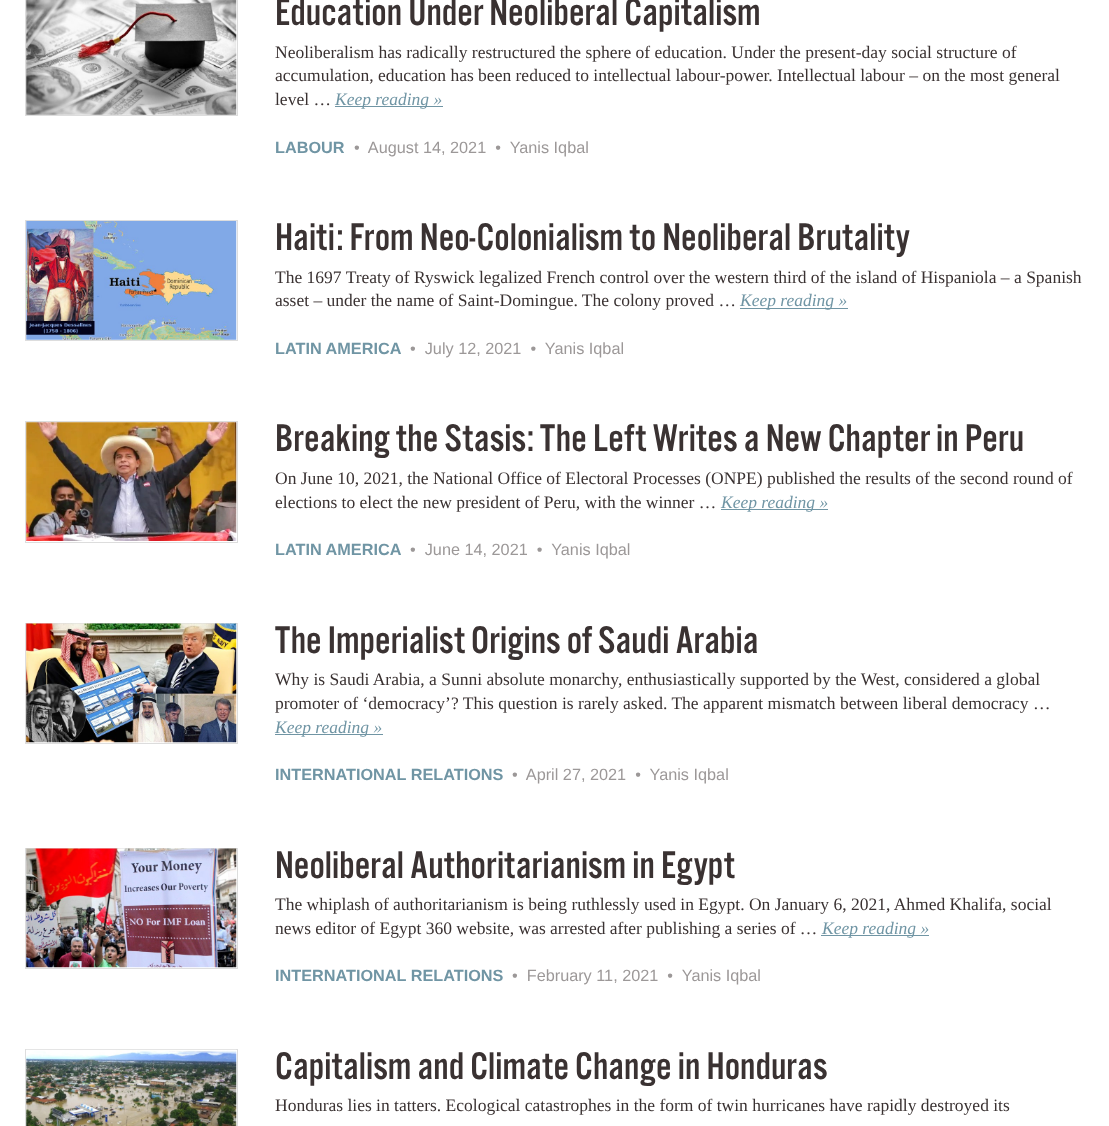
<!DOCTYPE html>
<meta charset="utf-8">
<style>body { margin: 0 } canvas { display: block }</style>
<canvas id="canvas" width="1109" height="1126"></canvas>
<img id="img1" src="images/1.png" hidden>
<img id="img2" src="images/2.png" hidden>
<img id="img3" src="images/3.png" hidden>
<img id="img4" src="images/4.png" hidden>
<img id="img5" src="images/5.png" hidden>
<img id="img6" src="images/6.png" hidden>
<script>
window.onload = function () {
    const canvas = document.getElementById('canvas');
    const context = canvas.getContext('2d');
    context.miterLimit = 4;
    context.fontKerning = 'normal';

    context.fillStyle = 'rgb(255, 255, 255)';
    context.fillRect(0, 0, 1109, 1126);
    context.strokeStyle = 'rgb(221, 221, 221)';
    context.strokeRect(25.5, -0.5, 212, 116);
    context.drawImage(document.getElementById('img1'), 26, 0, 211, 115);
    context.fillStyle = 'rgb(112, 149, 164)';
    context.fillRect(335, 106, 108, 1);
    context.strokeRect(25.5, 220.5, 212, 120);
    context.drawImage(document.getElementById('img2'), 26, 221, 211, 119);
    context.fillRect(740, 308, 108, 1);
    context.strokeRect(25.5, 421.5, 212, 121);
    context.drawImage(document.getElementById('img3'), 26, 422, 211, 119);
    context.fillRect(721, 509, 107, 1);
    context.strokeRect(25.5, 623.5, 212, 120);
    context.drawImage(document.getElementById('img4'), 26, 623, 211, 120);
    context.fillRect(275, 734, 108, 1);
    context.strokeRect(25.5, 848.5, 212, 120);
    context.drawImage(document.getElementById('img5'), 26, 848, 211, 120);
    context.fillRect(821, 935, 108, 1);
    context.strokeRect(25.5, 1049.5, 212, 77);
    context.drawImage(document.getElementById('img6'), 26, 1049, 211, 77);
    context.font = '40px "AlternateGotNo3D"';
    context.fillStyle = 'rgb(58, 50, 50)';
    context.fillText('Education Under Neoliberal Capitalism', 275, 25);
    context.font = '17.5px Liberation Serif';
    context.fillText('Neoliberalism has radically restructured the sphere of education. Under the present-day social structure of', 275, 58);
    context.fillText('accumulation, education has been reduced to intellectual labour-power. Intellectual labour – on the most general', 275, 81);
    context.fillText('level …', 275, 105);
    context.font = 'italic 17.5px Liberation Serif';
    context.fillStyle = 'rgb(112, 149, 164)';
    context.fillText('Keep reading »', 335, 105);
    context.font = 'bold 16.25px Liberation Sans';
    context.fillText('LABOUR', 275, 153);
    context.font = '16.25px Liberation Sans';
    context.fillStyle = 'rgb(156, 152, 152)';
    context.fillText('•  August 14, 2021  •  Yanis Iqbal', 354, 153);
    context.font = '40px "AlternateGotNo3D"';
    context.fillStyle = 'rgb(58, 50, 50)';
    context.fillText('Haiti: From Neo-Colonialism to Neoliberal Brutality', 275, 250);
    context.font = '17.5px Liberation Serif';
    context.fillText('The 1697 Treaty of Ryswick legalized French control over the western third of the island of Hispaniola – a Spanish', 275, 283);
    context.fillText('asset – under the name of Saint-Domingue. The colony proved …', 275, 306);
    context.font = 'italic 17.5px Liberation Serif';
    context.fillStyle = 'rgb(112, 149, 164)';
    context.fillText('Keep reading »', 740, 306);
    context.font = 'bold 16.25px Liberation Sans';
    context.fillText('LATIN AMERICA', 275, 354);
    context.font = '16.25px Liberation Sans';
    context.fillStyle = 'rgb(156, 152, 152)';
    context.fillText('•  July 12, 2021  •  Yanis Iqbal', 410, 354);
    context.font = '40px "AlternateGotNo3D"';
    context.fillStyle = 'rgb(58, 50, 50)';
    context.fillText('Breaking the Stasis: The Left Writes a New Chapter in Peru', 275, 451);
    context.font = '17.5px Liberation Serif';
    context.fillText('On June 10, 2021, the National Office of Electoral Processes (ONPE) published the results of the second round of', 275, 484);
    context.fillText('elections to elect the new president of Peru, with the winner …', 275, 508);
    context.font = 'italic 17.5px Liberation Serif';
    context.fillStyle = 'rgb(112, 149, 164)';
    context.fillText('Keep reading »', 721, 508);
    context.font = 'bold 16.25px Liberation Sans';
    context.fillText('LATIN AMERICA', 275, 555);
    context.font = '16.25px Liberation Sans';
    context.fillStyle = 'rgb(156, 152, 152)';
    context.fillText('•  June 14, 2021  •  Yanis Iqbal', 410, 555);
    context.font = '40px "AlternateGotNo3D"';
    context.fillStyle = 'rgb(58, 50, 50)';
    context.fillText('The Imperialist Origins of Saudi Arabia', 275, 653);
    context.font = '17.5px Liberation Serif';
    context.fillText('Why is Saudi Arabia, a Sunni absolute monarchy, enthusiastically supported by the West, considered a global', 275, 685);
    context.fillText('promoter of ‘democracy’? This question is rarely asked. The apparent mismatch between liberal democracy …', 275, 709);
    context.font = 'italic 17.5px Liberation Serif';
    context.fillStyle = 'rgb(112, 149, 164)';
    context.fillText('Keep reading »', 275, 733);
    context.font = 'bold 16.25px Liberation Sans';
    context.fillText('INTERNATIONAL RELATIONS', 275, 780);
    context.font = '16.25px Liberation Sans';
    context.fillStyle = 'rgb(156, 152, 152)';
    context.fillText('•  April 27, 2021  •  Yanis Iqbal', 512, 780);
    context.font = '40px "AlternateGotNo3D"';
    context.fillStyle = 'rgb(58, 50, 50)';
    context.fillText('Neoliberal Authoritarianism in Egypt', 275, 878);
    context.font = '17.5px Liberation Serif';
    context.fillText('The whiplash of authoritarianism is being ruthlessly used in Egypt. On January 6, 2021, Ahmed Khalifa, social', 275, 910);
    context.fillText('news editor of Egypt 360 website, was arrested after publishing a series of …', 275, 934);
    context.font = 'italic 17.5px Liberation Serif';
    context.fillStyle = 'rgb(112, 149, 164)';
    context.fillText('Keep reading »', 822, 934);
    context.font = 'bold 16.25px Liberation Sans';
    context.fillText('INTERNATIONAL RELATIONS', 275, 981);
    context.font = '16.25px Liberation Sans';
    context.fillStyle = 'rgb(156, 152, 152)';
    context.fillText('•  February 11, 2021  •  Yanis Iqbal', 512, 981);
    context.font = '40px "AlternateGotNo3D"';
    context.fillStyle = 'rgb(58, 50, 50)';
    context.fillText('Capitalism and Climate Change in Honduras', 275, 1079);
    context.font = '17.5px Liberation Serif';
    context.fillText('Honduras lies in tatters. Ecological catastrophes in the form of twin hurricanes have rapidly destroyed its', 275, 1111);
};
</script>
